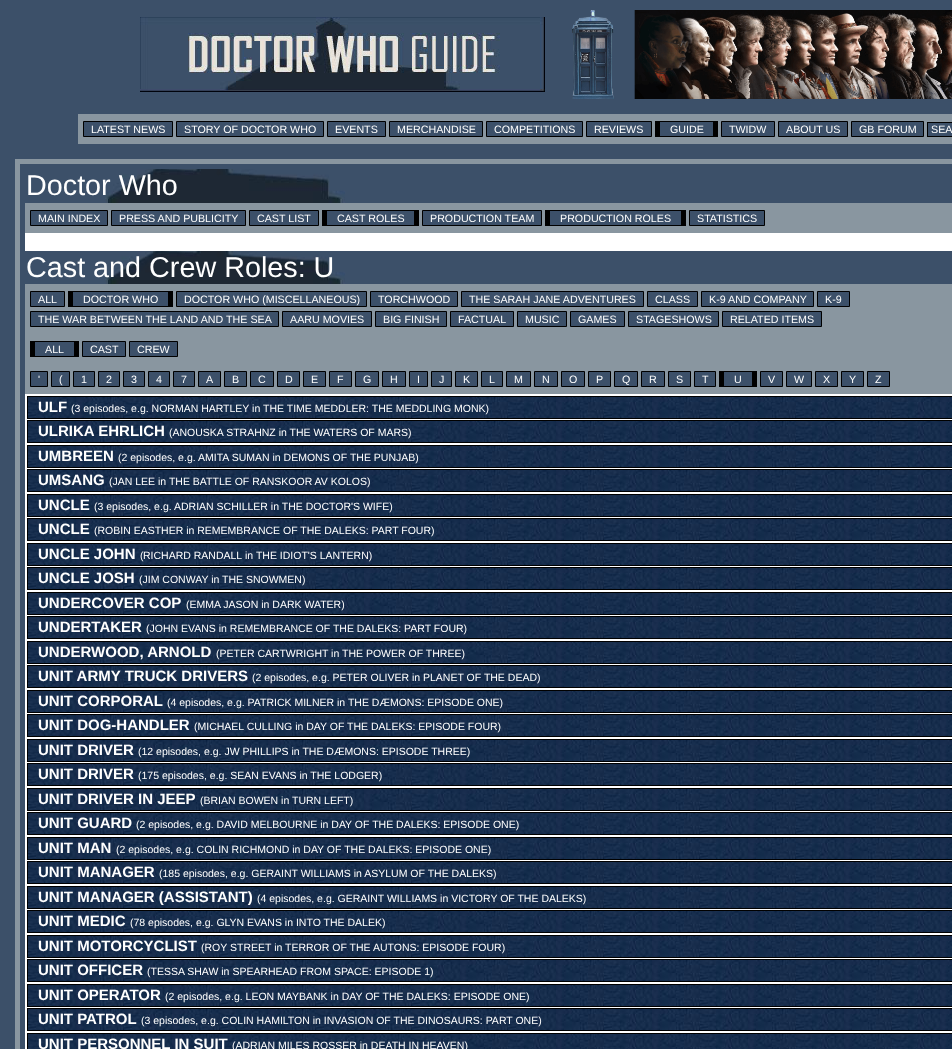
<!DOCTYPE html>
<meta charset="utf-8">
<style>body { margin: 0 } canvas { display: block }</style>
<canvas id="canvas" width="952" height="1049"></canvas>
<img id="img1" src="images/1.png" hidden>
<img id="img2" src="images/2.png" hidden>
<img id="img3" src="images/3.png" hidden>
<img id="img4" src="images/4.png" hidden>
<img id="img5" src="images/5.png" hidden>
<img id="img6" src="images/6.png" hidden>
<script>
window.onload = function () {
    const canvas = document.getElementById('canvas');
    const context = canvas.getContext('2d');
    context.miterLimit = 4;
    context.fontKerning = 'normal';

    context.fillStyle = 'rgb(60, 80, 105)';
    context.fillRect(0, 0, 952, 1049);
    context.drawImage(document.getElementById('img1'), 140, 17, 405, 75);
    context.drawImage(document.getElementById('img2'), 572, 10, 380, 89);
    context.fillStyle = 'rgb(137, 150, 160)';
    context.fillRect(78, 114, 874, 30);
    context.fillStyle = 'rgb(60, 80, 105)';
    context.beginPath();
    context.rect(83.5, 121.5, 89, 15);
    context.fill();
    context.strokeStyle = 'rgb(0, 0, 0)';
    context.stroke();
    context.beginPath();
    context.rect(176.5, 121.5, 147, 15);
    context.fill();
    context.stroke();
    context.beginPath();
    context.rect(327.5, 121.5, 58, 15);
    context.fill();
    context.stroke();
    context.beginPath();
    context.rect(389.5, 121.5, 93, 15);
    context.fill();
    context.stroke();
    context.beginPath();
    context.rect(486.5, 121.5, 96, 15);
    context.fill();
    context.stroke();
    context.beginPath();
    context.rect(586.5, 121.5, 65, 15);
    context.fill();
    context.stroke();
    context.fillRect(660, 122, 53, 14);
    context.fillStyle = 'rgb(0, 0, 0)';
    context.fillRect(655, 121, 63, 1);
    context.fillRect(713, 121, 5, 16);
    context.fillRect(655, 136, 63, 1);
    context.fillRect(655, 121, 5, 16);
    context.fillStyle = 'rgb(60, 80, 105)';
    context.beginPath();
    context.rect(721.5, 121.5, 53, 15);
    context.fill();
    context.stroke();
    context.beginPath();
    context.rect(778.5, 121.5, 69, 15);
    context.fill();
    context.stroke();
    context.beginPath();
    context.rect(851.5, 121.5, 72, 15);
    context.fill();
    context.stroke();
    context.fillRect(928, 123, 24, 13);
    context.fillStyle = 'rgb(0, 0, 0)';
    context.fillRect(927, 122, 25, 1);
    context.fillRect(927, 136, 25, 1);
    context.fillRect(927, 122, 1, 15);
    context.fillStyle = 'rgb(137, 150, 160)';
    context.fillRect(15, 159, 937, 890);
    context.fillStyle = 'rgb(255, 255, 255)';
    context.fillRect(25, 233, 927, 816);
    context.strokeStyle = 'rgb(60, 80, 105)';
    context.lineWidth = 5;
    context.strokeRect(22.5, 166.5, 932, 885);
    context.drawImage(document.getElementById('img3'), 25, 169, 927, 34);
    context.fillStyle = 'rgb(60, 80, 105)';
    context.beginPath();
    context.rect(30.5, 210.5, 77, 15);
    context.fill();
    context.strokeStyle = 'rgb(0, 0, 0)';
    context.lineWidth = 1;
    context.stroke();
    context.beginPath();
    context.rect(111.5, 210.5, 134, 15);
    context.fill();
    context.stroke();
    context.beginPath();
    context.rect(249.5, 210.5, 69, 15);
    context.fill();
    context.stroke();
    context.fillRect(327, 211, 87, 14);
    context.fillStyle = 'rgb(0, 0, 0)';
    context.fillRect(322, 210, 97, 1);
    context.fillRect(414, 210, 5, 16);
    context.fillRect(322, 225, 97, 1);
    context.fillRect(322, 210, 5, 16);
    context.fillStyle = 'rgb(60, 80, 105)';
    context.beginPath();
    context.rect(422.5, 210.5, 119, 15);
    context.fill();
    context.stroke();
    context.fillRect(550, 211, 131, 14);
    context.fillStyle = 'rgb(0, 0, 0)';
    context.fillRect(545, 210, 141, 1);
    context.fillRect(681, 210, 5, 16);
    context.fillRect(545, 225, 141, 1);
    context.fillRect(545, 210, 5, 16);
    context.fillStyle = 'rgb(60, 80, 105)';
    context.beginPath();
    context.rect(689.5, 210.5, 75, 15);
    context.fill();
    context.stroke();
    context.drawImage(document.getElementById('img4'), 25, 251, 927, 33);
    context.fillStyle = 'rgb(137, 150, 160)';
    context.fillRect(25, 284, 927, 110);
    context.fillStyle = 'rgb(60, 80, 105)';
    context.beginPath();
    context.rect(30.5, 291.5, 34, 15);
    context.fill();
    context.stroke();
    context.fillRect(73, 292, 95, 14);
    context.fillStyle = 'rgb(0, 0, 0)';
    context.fillRect(68, 291, 105, 1);
    context.fillRect(168, 291, 5, 16);
    context.fillRect(68, 306, 105, 1);
    context.fillRect(68, 291, 5, 16);
    context.fillStyle = 'rgb(60, 80, 105)';
    context.beginPath();
    context.rect(176.5, 291.5, 190, 15);
    context.fill();
    context.stroke();
    context.beginPath();
    context.rect(370.5, 291.5, 87, 15);
    context.fill();
    context.stroke();
    context.beginPath();
    context.rect(461.5, 291.5, 182, 15);
    context.fill();
    context.stroke();
    context.beginPath();
    context.rect(647.5, 291.5, 50, 15);
    context.fill();
    context.stroke();
    context.beginPath();
    context.rect(701.5, 291.5, 112, 15);
    context.fill();
    context.stroke();
    context.beginPath();
    context.rect(817.5, 291.5, 32, 15);
    context.fill();
    context.stroke();
    context.beginPath();
    context.rect(30.5, 311.5, 248, 15);
    context.fill();
    context.stroke();
    context.beginPath();
    context.rect(282.5, 311.5, 89, 15);
    context.fill();
    context.stroke();
    context.beginPath();
    context.rect(375.5, 311.5, 71, 15);
    context.fill();
    context.stroke();
    context.beginPath();
    context.rect(450.5, 311.5, 63, 15);
    context.fill();
    context.stroke();
    context.beginPath();
    context.rect(517.5, 311.5, 49, 15);
    context.fill();
    context.stroke();
    context.beginPath();
    context.rect(570.5, 311.5, 54, 15);
    context.fill();
    context.stroke();
    context.beginPath();
    context.rect(628.5, 311.5, 90, 15);
    context.fill();
    context.stroke();
    context.beginPath();
    context.rect(722.5, 311.5, 99, 15);
    context.fill();
    context.stroke();
    context.fillRect(35, 342, 39, 14);
    context.fillStyle = 'rgb(0, 0, 0)';
    context.fillRect(30, 341, 49, 1);
    context.fillRect(74, 341, 5, 16);
    context.fillRect(30, 356, 49, 1);
    context.fillRect(30, 341, 5, 16);
    context.fillStyle = 'rgb(60, 80, 105)';
    context.beginPath();
    context.rect(82.5, 341.5, 43, 15);
    context.fill();
    context.stroke();
    context.beginPath();
    context.rect(129.5, 341.5, 48, 15);
    context.fill();
    context.stroke();
    context.beginPath();
    context.rect(30.5, 371.5, 17, 15);
    context.fill();
    context.stroke();
    context.beginPath();
    context.rect(51.5, 371.5, 18, 15);
    context.fill();
    context.stroke();
    context.beginPath();
    context.rect(73.5, 371.5, 21, 15);
    context.fill();
    context.stroke();
    context.beginPath();
    context.rect(98.5, 371.5, 21, 15);
    context.fill();
    context.stroke();
    context.beginPath();
    context.rect(123.5, 371.5, 21, 15);
    context.fill();
    context.stroke();
    context.beginPath();
    context.rect(148.5, 371.5, 21, 15);
    context.fill();
    context.stroke();
    context.beginPath();
    context.rect(173.5, 371.5, 21, 15);
    context.fill();
    context.stroke();
    context.beginPath();
    context.rect(198.5, 371.5, 22, 15);
    context.fill();
    context.stroke();
    context.beginPath();
    context.rect(224.5, 371.5, 22, 15);
    context.fill();
    context.stroke();
    context.beginPath();
    context.rect(250.5, 371.5, 23, 15);
    context.fill();
    context.stroke();
    context.beginPath();
    context.rect(277.5, 371.5, 22, 15);
    context.fill();
    context.stroke();
    context.beginPath();
    context.rect(303.5, 371.5, 22, 15);
    context.fill();
    context.stroke();
    context.beginPath();
    context.rect(329.5, 371.5, 22, 15);
    context.fill();
    context.stroke();
    context.beginPath();
    context.rect(355.5, 371.5, 23, 15);
    context.fill();
    context.stroke();
    context.beginPath();
    context.rect(382.5, 371.5, 23, 15);
    context.fill();
    context.stroke();
    context.beginPath();
    context.rect(409.5, 371.5, 18, 15);
    context.fill();
    context.stroke();
    context.beginPath();
    context.rect(431.5, 371.5, 20, 15);
    context.fill();
    context.stroke();
    context.beginPath();
    context.rect(455.5, 371.5, 22, 15);
    context.fill();
    context.stroke();
    context.beginPath();
    context.rect(481.5, 371.5, 21, 15);
    context.fill();
    context.stroke();
    context.beginPath();
    context.rect(506.5, 371.5, 24, 15);
    context.fill();
    context.stroke();
    context.beginPath();
    context.rect(534.5, 371.5, 23, 15);
    context.fill();
    context.stroke();
    context.beginPath();
    context.rect(561.5, 371.5, 23, 15);
    context.fill();
    context.stroke();
    context.beginPath();
    context.rect(588.5, 371.5, 22, 15);
    context.fill();
    context.stroke();
    context.beginPath();
    context.rect(614.5, 371.5, 23, 15);
    context.fill();
    context.stroke();
    context.beginPath();
    context.rect(641.5, 371.5, 23, 15);
    context.fill();
    context.stroke();
    context.beginPath();
    context.rect(668.5, 371.5, 22, 15);
    context.fill();
    context.stroke();
    context.beginPath();
    context.rect(694.5, 371.5, 21, 15);
    context.fill();
    context.stroke();
    context.fillRect(724, 372, 28, 14);
    context.fillStyle = 'rgb(0, 0, 0)';
    context.fillRect(719, 371, 38, 1);
    context.fillRect(752, 371, 5, 16);
    context.fillRect(719, 386, 38, 1);
    context.fillRect(719, 371, 5, 16);
    context.fillStyle = 'rgb(60, 80, 105)';
    context.beginPath();
    context.rect(760.5, 371.5, 22, 15);
    context.fill();
    context.stroke();
    context.beginPath();
    context.rect(786.5, 371.5, 25, 15);
    context.fill();
    context.stroke();
    context.beginPath();
    context.rect(815.5, 371.5, 22, 15);
    context.fill();
    context.stroke();
    context.beginPath();
    context.rect(841.5, 371.5, 22, 15);
    context.fill();
    context.stroke();
    context.beginPath();
    context.rect(867.5, 371.5, 22, 15);
    context.fill();
    context.stroke();
    context.drawImage(document.getElementById('img5'), 28, 397, 924, 21);
    context.strokeRect(27.5, 396.5, 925, 22);
    context.drawImage(document.getElementById('img5'), 28, 421, 924, 21);
    context.strokeRect(27.5, 420.5, 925, 22);
    context.drawImage(document.getElementById('img5'), 28, 446, 924, 21);
    context.strokeRect(27.5, 445.5, 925, 22);
    context.drawImage(document.getElementById('img5'), 28, 470, 924, 21);
    context.strokeRect(27.5, 469.5, 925, 22);
    context.drawImage(document.getElementById('img5'), 28, 495, 924, 21);
    context.strokeRect(27.5, 494.5, 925, 22);
    context.drawImage(document.getElementById('img5'), 28, 519, 924, 21);
    context.strokeRect(27.5, 518.5, 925, 22);
    context.drawImage(document.getElementById('img5'), 28, 544, 924, 21);
    context.strokeRect(27.5, 543.5, 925, 22);
    context.drawImage(document.getElementById('img5'), 28, 568, 924, 21);
    context.strokeRect(27.5, 567.5, 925, 22);
    context.drawImage(document.getElementById('img5'), 28, 593, 924, 21);
    context.strokeRect(27.5, 592.5, 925, 22);
    context.drawImage(document.getElementById('img5'), 28, 617, 924, 21);
    context.strokeRect(27.5, 616.5, 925, 22);
    context.drawImage(document.getElementById('img5'), 28, 642, 924, 21);
    context.strokeRect(27.5, 641.5, 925, 22);
    context.drawImage(document.getElementById('img5'), 28, 666, 924, 21);
    context.strokeRect(27.5, 665.5, 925, 22);
    context.drawImage(document.getElementById('img5'), 28, 691, 924, 21);
    context.strokeRect(27.5, 690.5, 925, 22);
    context.drawImage(document.getElementById('img5'), 28, 715, 924, 21);
    context.strokeRect(27.5, 714.5, 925, 22);
    context.drawImage(document.getElementById('img5'), 28, 740, 924, 21);
    context.strokeRect(27.5, 739.5, 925, 22);
    context.drawImage(document.getElementById('img5'), 28, 764, 924, 21);
    context.strokeRect(27.5, 763.5, 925, 22);
    context.drawImage(document.getElementById('img5'), 28, 789, 924, 21);
    context.strokeRect(27.5, 788.5, 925, 22);
    context.drawImage(document.getElementById('img5'), 28, 813, 924, 21);
    context.strokeRect(27.5, 812.5, 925, 22);
    context.drawImage(document.getElementById('img5'), 28, 838, 924, 21);
    context.strokeRect(27.5, 837.5, 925, 22);
    context.drawImage(document.getElementById('img5'), 28, 862, 924, 21);
    context.strokeRect(27.5, 861.5, 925, 22);
    context.drawImage(document.getElementById('img5'), 28, 887, 924, 21);
    context.strokeRect(27.5, 886.5, 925, 22);
    context.drawImage(document.getElementById('img5'), 28, 911, 924, 21);
    context.strokeRect(27.5, 910.5, 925, 22);
    context.drawImage(document.getElementById('img5'), 28, 936, 924, 21);
    context.strokeRect(27.5, 935.5, 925, 22);
    context.drawImage(document.getElementById('img5'), 28, 960, 924, 21);
    context.strokeRect(27.5, 959.5, 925, 22);
    context.drawImage(document.getElementById('img5'), 28, 985, 924, 21);
    context.strokeRect(27.5, 984.5, 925, 22);
    context.drawImage(document.getElementById('img5'), 28, 1009, 924, 21);
    context.strokeRect(27.5, 1008.5, 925, 22);
    context.drawImage(document.getElementById('img6'), 28, 1034, 924, 15);
    context.strokeRect(27.5, 1033.5, 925, 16);
    context.font = '10.7px Liberation Sans';
    context.fillStyle = 'rgb(255, 255, 255)';
    context.fillText('LATEST NEWS', 91, 133);
    context.fillText('STORY OF DOCTOR WHO', 184, 133);
    context.fillText('EVENTS', 335, 133);
    context.fillText('MERCHANDISE', 397, 133);
    context.fillText('COMPETITIONS', 494, 133);
    context.fillText('REVIEWS', 594, 133);
    context.fillText('GUIDE', 670, 133);
    context.fillText('TWIDW', 729, 133);
    context.fillText('ABOUT US', 786, 133);
    context.fillText('GB FORUM', 859, 133);
    context.fillText('SEA', 931, 133);
    context.font = '28.75px Liberation Sans';
    context.fillText('Doctor Who', 26, 195);
    context.font = '10.7px Liberation Sans';
    context.fillText('MAIN INDEX', 38, 222);
    context.fillText('PRESS AND PUBLICITY', 119, 222);
    context.fillText('CAST LIST', 257, 222);
    context.fillText('CAST ROLES', 337, 222);
    context.fillText('PRODUCTION TEAM', 430, 222);
    context.fillText('PRODUCTION ROLES', 560, 222);
    context.fillText('STATISTICS', 697, 222);
    context.font = '28.75px Liberation Sans';
    context.fillText('Cast and Crew Roles: U', 26, 277);
    context.font = '10.7px Liberation Sans';
    context.fillText('ALL', 38, 303);
    context.fillText('DOCTOR WHO', 83, 303);
    context.fillText('DOCTOR WHO (MISCELLANEOUS)', 184, 303);
    context.fillText('TORCHWOOD', 378, 303);
    context.fillText('THE SARAH JANE ADVENTURES', 469, 303);
    context.fillText('CLASS', 655, 303);
    context.fillText('K-9 AND COMPANY', 709, 303);
    context.fillText('K-9', 825, 303);
    context.fillText('THE WAR BETWEEN THE LAND AND THE SEA', 38, 323);
    context.fillText('AARU MOVIES', 290, 323);
    context.fillText('BIG FINISH', 383, 323);
    context.fillText('FACTUAL', 458, 323);
    context.fillText('MUSIC', 525, 323);
    context.fillText('GAMES', 578, 323);
    context.fillText('STAGESHOWS', 636, 323);
    context.fillText('RELATED ITEMS', 730, 323);
    context.fillText('ALL', 45, 353);
    context.fillText('CAST', 90, 353);
    context.fillText('CREW', 137, 353);
    context.fillText('\'', 38, 383);
    context.fillText('(', 59, 383);
    context.fillText('1', 81, 383);
    context.fillText('2', 106, 383);
    context.fillText('3', 131, 383);
    context.fillText('4', 156, 383);
    context.fillText('7', 181, 383);
    context.fillText('A', 206, 383);
    context.fillText('B', 232, 383);
    context.fillText('C', 258, 383);
    context.fillText('D', 285, 383);
    context.fillText('E', 311, 383);
    context.fillText('F', 337, 383);
    context.fillText('G', 363, 383);
    context.fillText('H', 390, 383);
    context.fillText('I', 417, 383);
    context.fillText('J', 439, 383);
    context.fillText('K', 463, 383);
    context.fillText('L', 489, 383);
    context.fillText('M', 514, 383);
    context.fillText('N', 542, 383);
    context.fillText('O', 569, 383);
    context.fillText('P', 596, 383);
    context.fillText('Q', 622, 383);
    context.fillText('R', 649, 383);
    context.fillText('S', 676, 383);
    context.fillText('T', 702, 383);
    context.fillText('U', 734, 383);
    context.fillText('V', 768, 383);
    context.fillText('W', 794, 383);
    context.fillText('X', 823, 383);
    context.fillText('Y', 849, 383);
    context.fillText('Z', 875, 383);
    context.font = 'bold 15px Liberation Sans';
    context.fillText('ULF', 38, 412);
    context.font = '10.5px Liberation Sans';
    context.fillText('(3 episodes, e.g. NORMAN HARTLEY in THE TIME MEDDLER: THE MEDDLING MONK)', 71, 412);
    context.font = 'bold 15px Liberation Sans';
    context.fillText('ULRIKA EHRLICH', 38, 436);
    context.font = '10.5px Liberation Sans';
    context.fillText('(ANOUSKA STRAHNZ in THE WATERS OF MARS)', 169, 436);
    context.font = 'bold 15px Liberation Sans';
    context.fillText('UMBREEN', 38, 461);
    context.font = '10.5px Liberation Sans';
    context.fillText('(2 episodes, e.g.', 118, 461);
    context.fillText('AMITA SUMAN in DEMONS OF THE PUNJAB)', 198, 461);
    context.font = 'bold 15px Liberation Sans';
    context.fillText('UMSANG', 38, 485);
    context.font = '10.5px Liberation Sans';
    context.fillText('(JAN LEE in THE BATTLE OF RANSKOOR AV KOLOS)', 109, 485);
    context.font = 'bold 15px Liberation Sans';
    context.fillText('UNCLE', 38, 510);
    context.font = '10.5px Liberation Sans';
    context.fillText('(3 episodes, e.g.', 94, 510);
    context.fillText('ADRIAN SCHILLER in THE DOCTOR\'S WIFE)', 174, 510);
    context.font = 'bold 15px Liberation Sans';
    context.fillText('UNCLE', 38, 534);
    context.font = '10.5px Liberation Sans';
    context.fillText('(ROBIN EASTHER in REMEMBRANCE OF THE DALEKS: PART FOUR)', 94, 534);
    context.font = 'bold 15px Liberation Sans';
    context.fillText('UNCLE JOHN', 38, 559);
    context.font = '10.5px Liberation Sans';
    context.fillText('(', 140, 559);
    context.fillText('RICHARD RANDALL', 143, 559);
    context.fillText('in THE IDIOT\'S LANTERN)', 245, 559);
    context.font = 'bold 15px Liberation Sans';
    context.fillText('UNCLE JOSH', 38, 583);
    context.font = '10.5px Liberation Sans';
    context.fillText('(JIM CONWAY in THE SNOWMEN)', 139, 583);
    context.font = 'bold 15px Liberation Sans';
    context.fillText('UNDERCOVER COP', 38, 608);
    context.font = '10.5px Liberation Sans';
    context.fillText('(EMMA JASON in DARK WATER)', 186, 608);
    context.font = 'bold 15px Liberation Sans';
    context.fillText('UNDERTAKER', 38, 632);
    context.font = '10.5px Liberation Sans';
    context.fillText('(JOHN EVANS in REMEMBRANCE OF THE DALEKS: PART FOUR)', 146, 632);
    context.font = 'bold 15px Liberation Sans';
    context.fillText('UNDERWOOD, ARNOLD', 38, 657);
    context.font = '10.5px Liberation Sans';
    context.fillText('(PETER CARTWRIGHT in THE POWER OF THREE)', 216, 657);
    context.font = 'bold 15px Liberation Sans';
    context.fillText('UNIT ARMY TRUCK DRIVERS', 38, 681);
    context.font = '10.5px Liberation Sans';
    context.fillText('(2 episodes, e.g. PETER OLIVER in PLANET OF THE DEAD)', 252, 681);
    context.font = 'bold 15px Liberation Sans';
    context.fillText('UNIT CORPORAL', 38, 706);
    context.font = '10.5px Liberation Sans';
    context.fillText('(4 episodes, e.g. PATRICK MILNER in THE DÆMONS: EPISODE ONE)', 167, 706);
    context.font = 'bold 15px Liberation Sans';
    context.fillText('UNIT DOG-HANDLER', 38, 730);
    context.font = '10.5px Liberation Sans';
    context.fillText('(MICHAEL CULLING in DAY OF THE DALEKS: EPISODE FOUR)', 194, 730);
    context.font = 'bold 15px Liberation Sans';
    context.fillText('UNIT DRIVER', 38, 755);
    context.font = '10.5px Liberation Sans';
    context.fillText('(12 episodes, e.g. JW PHILLIPS in THE DÆMONS: EPISODE THREE)', 138, 755);
    context.font = 'bold 15px Liberation Sans';
    context.fillText('UNIT DRIVER', 38, 779);
    context.font = '10.5px Liberation Sans';
    context.fillText('(175 episodes, e.g. SEAN EVANS in THE LODGER)', 138, 779);
    context.font = 'bold 15px Liberation Sans';
    context.fillText('UNIT DRIVER IN JEEP', 38, 804);
    context.font = '10.5px Liberation Sans';
    context.fillText('(BRIAN BOWEN in TURN LEFT)', 200, 804);
    context.font = 'bold 15px Liberation Sans';
    context.fillText('UNIT GUARD', 38, 828);
    context.font = '10.5px Liberation Sans';
    context.fillText('(2 episodes, e.g. DAVID MELBOURNE in DAY OF THE DALEKS: EPISODE ONE)', 136, 828);
    context.font = 'bold 15px Liberation Sans';
    context.fillText('UNIT MAN', 38, 853);
    context.font = '10.5px Liberation Sans';
    context.fillText('(2 episodes, e.g. COLIN RICHMOND in DAY OF THE DALEKS: EPISODE ONE)', 116, 853);
    context.font = 'bold 15px Liberation Sans';
    context.fillText('UNIT MANAGER', 38, 877);
    context.font = '10.5px Liberation Sans';
    context.fillText('(185 episodes, e.g. GERAINT WILLIAMS in ASYLUM OF THE DALEKS)', 159, 877);
    context.font = 'bold 15px Liberation Sans';
    context.fillText('UNIT MANAGER (ASSISTANT)', 38, 902);
    context.font = '10.5px Liberation Sans';
    context.fillText('(4 episodes, e.g. GERAINT WILLIAMS in VICTORY OF THE DALEKS)', 257, 902);
    context.font = 'bold 15px Liberation Sans';
    context.fillText('UNIT MEDIC', 38, 926);
    context.font = '10.5px Liberation Sans';
    context.fillText('(78 episodes, e.g. GLYN EVANS in INTO THE DALEK)', 130, 926);
    context.font = 'bold 15px Liberation Sans';
    context.fillText('UNIT MOTORCYCLIST', 38, 951);
    context.font = '10.5px Liberation Sans';
    context.fillText('(ROY STREET in TERROR OF THE AUTONS: EPISODE FOUR)', 201, 951);
    context.font = 'bold 15px Liberation Sans';
    context.fillText('UNIT OFFICER', 38, 975);
    context.font = '10.5px Liberation Sans';
    context.fillText('(TESSA SHAW in SPEARHEAD FROM SPACE: EPISODE 1)', 147, 975);
    context.font = 'bold 15px Liberation Sans';
    context.fillText('UNIT OPERATOR', 38, 1000);
    context.font = '10.5px Liberation Sans';
    context.fillText('(2 episodes, e.g. LEON MAYBANK in DAY OF THE DALEKS: EPISODE ONE)', 165, 1000);
    context.font = 'bold 15px Liberation Sans';
    context.fillText('UNIT PATROL', 38, 1024);
    context.font = '10.5px Liberation Sans';
    context.fillText('(3 episodes, e.g. COLIN HAMILTON in INVASION OF THE DINOSAURS: PART ONE)', 141, 1024);
    context.font = 'bold 15px Liberation Sans';
    context.fillText('UNIT PERSONNEL IN SUIT', 38, 1049);
    context.font = '10.5px Liberation Sans';
    context.fillText('(ADRIAN MILES ROSSER in DEATH IN HEAVEN)', 232, 1049);
};
</script>
